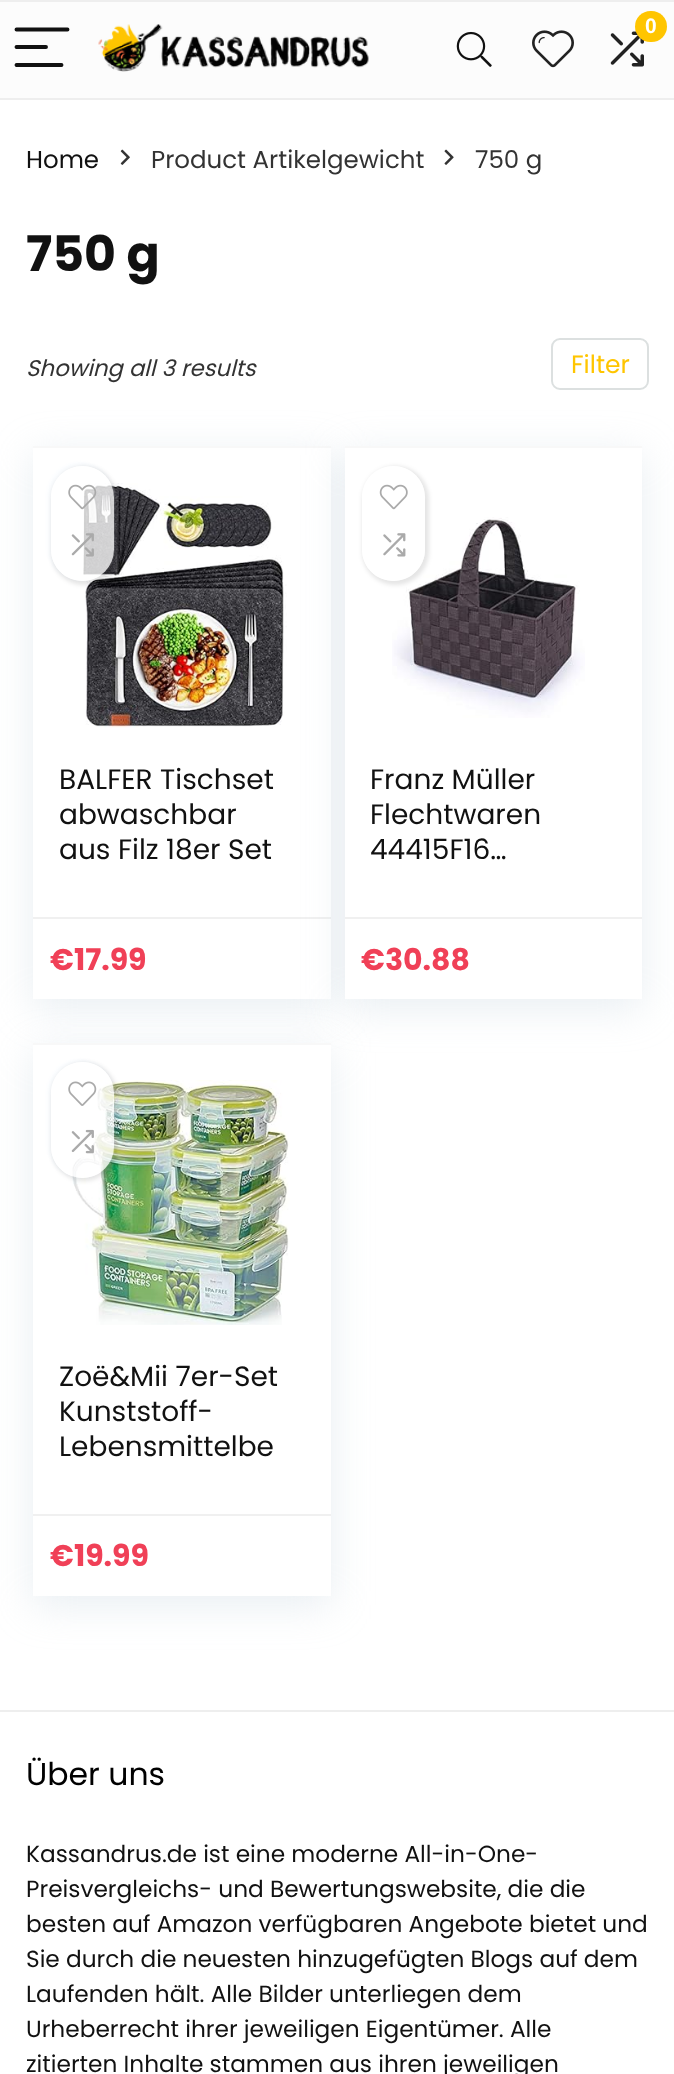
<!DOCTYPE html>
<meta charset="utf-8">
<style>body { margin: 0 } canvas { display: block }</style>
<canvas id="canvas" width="674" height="2074"></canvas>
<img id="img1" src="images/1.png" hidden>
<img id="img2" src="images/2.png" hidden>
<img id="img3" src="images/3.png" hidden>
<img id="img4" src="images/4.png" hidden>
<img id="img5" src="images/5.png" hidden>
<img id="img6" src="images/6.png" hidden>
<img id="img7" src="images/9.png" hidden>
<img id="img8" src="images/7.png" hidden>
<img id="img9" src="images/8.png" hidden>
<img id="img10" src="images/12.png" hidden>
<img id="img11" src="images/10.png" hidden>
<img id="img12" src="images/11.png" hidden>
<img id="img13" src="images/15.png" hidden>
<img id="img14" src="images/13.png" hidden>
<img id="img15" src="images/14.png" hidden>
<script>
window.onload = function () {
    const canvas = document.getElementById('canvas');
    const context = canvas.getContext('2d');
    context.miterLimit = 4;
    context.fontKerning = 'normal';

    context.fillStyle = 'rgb(255, 255, 255)';
    context.fillRect(0, 0, 674, 2074);
    context.fillStyle = 'rgb(252, 252, 252)';
    context.fillRect(0, 2, 674, 96);
    context.fillStyle = 'rgb(238, 238, 238)';
    context.fillRect(0, 0, 674, 2);
    context.fillRect(0, 98, 674, 2);
    context.beginPath();
    context.moveTo(16.5, 29.5);
    context.lineTo(67.5, 29.5);
    context.moveTo(16.5, 47);
    context.lineTo(46, 47);
    context.moveTo(16.5, 65);
    context.lineTo(61.5, 65);
    context.strokeStyle = 'rgb(17, 17, 17)';
    context.lineWidth = 3.9;
    context.lineCap = 'round';
    context.stroke();
    context.drawImage(document.getElementById('img1'), 98, 24, 271, 48);
    context.drawImage(document.getElementById('img2'), 610, 31, 34, 36);
    context.fillStyle = 'rgb(255, 197, 0)';
    context.beginPath();
    context.roundRect(635, 11, 32, 31, 15.5);
    context.fill();
    context.drawImage(document.getElementById('img3'), 456, 31, 36, 36);
    context.drawImage(document.getElementById('img4'), 532, 30, 42, 38);
    context.drawImage(document.getElementById('img5'), 120, 149, 10, 16);
    context.drawImage(document.getElementById('img6'), 444, 149, 10, 16);
    context.beginPath();
    context.roundRect(552, 339, 96, 50, 8);
    context.strokeStyle = 'rgb(220, 224, 224)';
    context.lineWidth = 2;
    context.stroke();
    context.fillStyle = 'rgba(188, 207, 219, 0.35)';
    context.filter = 'blur(20px)';
    context.beginPath();
    context.rect(33, 455, 298, 553);
    context.fill();
    context.filter = 'none';
    context.fillStyle = 'rgb(255, 255, 255)';
    context.fillRect(33, 448, 298, 551);
    context.fillStyle = 'rgb(248, 248, 248)';
    context.fillRect(33, 446, 298, 2);
    context.drawImage(document.getElementById('img7'), 83, 483, 204, 245);
    context.save();
    context.beginPath();
    context.moveTo(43, 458);
    context.lineTo(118, 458);
    context.lineTo(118, 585);
    context.lineTo(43, 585);
    context.closePath();
    context.moveTo(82.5, 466);
    context.bezierCurveTo(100, 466, 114, 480, 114, 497.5);
    context.lineTo(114, 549.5);
    context.bezierCurveTo(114, 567, 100, 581, 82.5, 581);
    context.bezierCurveTo(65, 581, 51, 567, 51, 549.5);
    context.lineTo(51, 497.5);
    context.bezierCurveTo(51, 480, 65, 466, 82.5, 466);
    context.closePath();
    context.clip('evenodd');
    context.fillStyle = 'rgba(247, 251, 255, 0.5)';
    context.filter = 'blur(1px)';
    context.beginPath();
    context.roundRect(47, 462, 67, 119, 33.5);
    context.fill();
    context.filter = 'none';
    context.restore();
    context.save();
    context.beginPath();
    context.moveTo(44, 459);
    context.lineTo(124, 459);
    context.lineTo(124, 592);
    context.lineTo(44, 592);
    context.closePath();
    context.moveTo(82.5, 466);
    context.bezierCurveTo(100, 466, 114, 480, 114, 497.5);
    context.lineTo(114, 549.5);
    context.bezierCurveTo(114, 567, 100, 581, 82.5, 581);
    context.bezierCurveTo(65, 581, 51, 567, 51, 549.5);
    context.lineTo(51, 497.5);
    context.bezierCurveTo(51, 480, 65, 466, 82.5, 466);
    context.closePath();
    context.clip('evenodd');
    context.fillStyle = 'rgba(0, 0, 0, 0.1)';
    context.filter = 'blur(2px)';
    context.beginPath();
    context.roundRect(51, 466, 66, 119, 33);
    context.fill();
    context.filter = 'none';
    context.restore();
    context.fillStyle = 'rgba(255, 255, 255, 0.78)';
    context.beginPath();
    context.roundRect(51, 466, 63, 115, 31.5);
    context.fill();
    context.drawImage(document.getElementById('img8'), 68, 484, 29, 26);
    context.drawImage(document.getElementById('img9'), 71, 533, 23, 24);
    context.fillStyle = 'rgb(240, 240, 240)';
    context.fillRect(33, 917, 298, 2);
    context.fillStyle = 'rgba(188, 207, 219, 0.35)';
    context.filter = 'blur(20px)';
    context.beginPath();
    context.rect(345, 455, 297, 553);
    context.fill();
    context.filter = 'none';
    context.fillStyle = 'rgb(255, 255, 255)';
    context.fillRect(345, 448, 297, 551);
    context.fillStyle = 'rgb(248, 248, 248)';
    context.fillRect(345, 446, 297, 2);
    context.drawImage(document.getElementById('img10'), 392, 517, 193, 201);
    context.save();
    context.beginPath();
    context.moveTo(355, 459);
    context.lineTo(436, 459);
    context.lineTo(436, 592);
    context.lineTo(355, 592);
    context.closePath();
    context.moveTo(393.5, 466);
    context.bezierCurveTo(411, 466, 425, 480, 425, 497.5);
    context.lineTo(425, 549.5);
    context.bezierCurveTo(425, 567, 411, 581, 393.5, 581);
    context.bezierCurveTo(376, 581, 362, 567, 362, 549.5);
    context.lineTo(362, 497.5);
    context.bezierCurveTo(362, 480, 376, 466, 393.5, 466);
    context.closePath();
    context.clip('evenodd');
    context.fillStyle = 'rgba(0, 0, 0, 0.1)';
    context.filter = 'blur(2px)';
    context.beginPath();
    context.roundRect(362, 466, 67, 119, 33.5);
    context.fill();
    context.filter = 'none';
    context.restore();
    context.fillStyle = 'rgba(255, 255, 255, 0.78)';
    context.beginPath();
    context.roundRect(362, 466, 63, 115, 31.5);
    context.fill();
    context.drawImage(document.getElementById('img11'), 379, 484, 29, 26);
    context.drawImage(document.getElementById('img12'), 383, 533, 23, 24);
    context.fillStyle = 'rgb(240, 240, 240)';
    context.fillRect(345, 917, 297, 2);
    context.fillStyle = 'rgba(188, 207, 219, 0.35)';
    context.filter = 'blur(20px)';
    context.beginPath();
    context.rect(33, 1052, 298, 553);
    context.fill();
    context.filter = 'none';
    context.fillStyle = 'rgb(255, 255, 255)';
    context.fillRect(33, 1045, 298, 551);
    context.fillStyle = 'rgb(248, 248, 248)';
    context.fillRect(33, 1043, 298, 2);
    context.drawImage(document.getElementById('img13'), 72, 1080, 218, 245);
    context.save();
    context.beginPath();
    context.moveTo(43, 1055);
    context.lineTo(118, 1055);
    context.lineTo(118, 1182);
    context.lineTo(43, 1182);
    context.closePath();
    context.moveTo(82.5, 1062);
    context.bezierCurveTo(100, 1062, 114, 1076, 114, 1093.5);
    context.lineTo(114, 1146.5);
    context.bezierCurveTo(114, 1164, 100, 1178, 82.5, 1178);
    context.bezierCurveTo(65, 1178, 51, 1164, 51, 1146.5);
    context.lineTo(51, 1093.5);
    context.bezierCurveTo(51, 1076, 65, 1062, 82.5, 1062);
    context.closePath();
    context.clip('evenodd');
    context.fillStyle = 'rgba(247, 251, 255, 0.5)';
    context.filter = 'blur(1px)';
    context.beginPath();
    context.roundRect(47, 1059, 67, 119, 33.5);
    context.fill();
    context.filter = 'none';
    context.restore();
    context.save();
    context.beginPath();
    context.moveTo(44, 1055);
    context.lineTo(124, 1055);
    context.lineTo(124, 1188);
    context.lineTo(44, 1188);
    context.closePath();
    context.moveTo(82.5, 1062);
    context.bezierCurveTo(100, 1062, 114, 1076, 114, 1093.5);
    context.lineTo(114, 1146.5);
    context.bezierCurveTo(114, 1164, 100, 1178, 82.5, 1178);
    context.bezierCurveTo(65, 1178, 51, 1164, 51, 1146.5);
    context.lineTo(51, 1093.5);
    context.bezierCurveTo(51, 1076, 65, 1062, 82.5, 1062);
    context.closePath();
    context.clip('evenodd');
    context.fillStyle = 'rgba(0, 0, 0, 0.1)';
    context.filter = 'blur(2px)';
    context.beginPath();
    context.roundRect(51, 1062, 66, 119, 33);
    context.fill();
    context.filter = 'none';
    context.restore();
    context.fillStyle = 'rgba(255, 255, 255, 0.78)';
    context.beginPath();
    context.roundRect(51, 1062, 63, 116, 31.5);
    context.fill();
    context.drawImage(document.getElementById('img14'), 68, 1081, 29, 25);
    context.drawImage(document.getElementById('img15'), 71, 1129, 23, 25);
    context.fillStyle = 'rgb(240, 240, 240)';
    context.fillRect(33, 1514, 298, 2);
    context.fillStyle = 'rgb(238, 238, 238)';
    context.fillRect(0, 1710, 674, 2);
    context.font = 'bold 21px Liberation Sans';
    context.fillStyle = 'rgb(255, 255, 255)';
    context.fillText('0', 645, 33);
    context.font = '24.5px Poppins';
    context.fillStyle = 'rgb(17, 17, 17)';
    context.fillText('Home', 26, 168);
    context.fillStyle = 'rgb(51, 51, 51)';
    context.fillText('Product Artikelgewicht', 151, 168);
    context.fillText('750 g', 475, 168);
    context.font = 'bold 49px Poppins';
    context.fillStyle = 'rgb(17, 17, 17)';
    context.fillText('750 g', 26, 271);
    context.font = 'italic 22.75px Poppins';
    context.fillStyle = 'rgb(51, 51, 51)';
    context.fillText('Showing all 3 results', 26, 376);
    context.font = '25px Poppins';
    context.fillStyle = 'rgb(255, 197, 0)';
    context.fillText('Filter', 571, 373);
    context.font = '28px Poppins';
    context.fillStyle = 'rgb(17, 17, 17)';
    context.fillText('BALFER Tischset', 59, 789);
    context.fillText('abwaschbar', 59, 824);
    context.fillText('aus Filz 18er Set', 59, 859);
    context.font = 'bold 30px Poppins';
    context.fillStyle = 'rgb(240, 64, 87)';
    context.fillText('€17.99', 50, 970);
    context.font = '28px Poppins';
    context.fillStyle = 'rgb(17, 17, 17)';
    context.fillText('Franz Müller', 370, 789);
    context.fillText('Flechtwaren', 370, 824);
    context.fillText('44415F16…', 370, 859);
    context.font = 'bold 30px Poppins';
    context.fillStyle = 'rgb(240, 64, 87)';
    context.fillText('€30.88', 361, 970);
    context.font = '28px Poppins';
    context.fillStyle = 'rgb(17, 17, 17)';
    context.fillText('Zoë&Mii 7er-Set', 59, 1386);
    context.fillText('Kunststoff-', 59, 1421);
    context.fillText('Lebensmittelbe', 59, 1456);
    context.font = 'bold 30px Poppins';
    context.fillStyle = 'rgb(240, 64, 87)';
    context.fillText('€19.99', 50, 1566);
    context.font = '31.5px Poppins';
    context.fillStyle = 'rgb(0, 0, 0)';
    context.fillText('Über uns', 26, 1785);
    context.font = '23.25px Poppins';
    context.fillStyle = 'rgb(17, 17, 17)';
    context.fillText('Kassandrus.de ist eine moderne All-in-One-', 26, 1862);
    context.fillText('Preisvergleichs- und Bewertungswebsite, die die', 26, 1897);
    context.fillText('besten auf Amazon verfügbaren Angebote bietet und', 26, 1932);
    context.fillText('Sie durch die neuesten hinzugefügten Blogs auf dem', 26, 1967);
    context.fillText('Laufenden hält. Alle Bilder unterliegen dem', 26, 2002);
    context.fillText('Urheberrecht ihrer jeweiligen Eigentümer. Alle', 26, 2037);
    context.fillText('zitierten Inhalte stammen aus ihren jeweiligen', 26, 2072);
};
</script>
